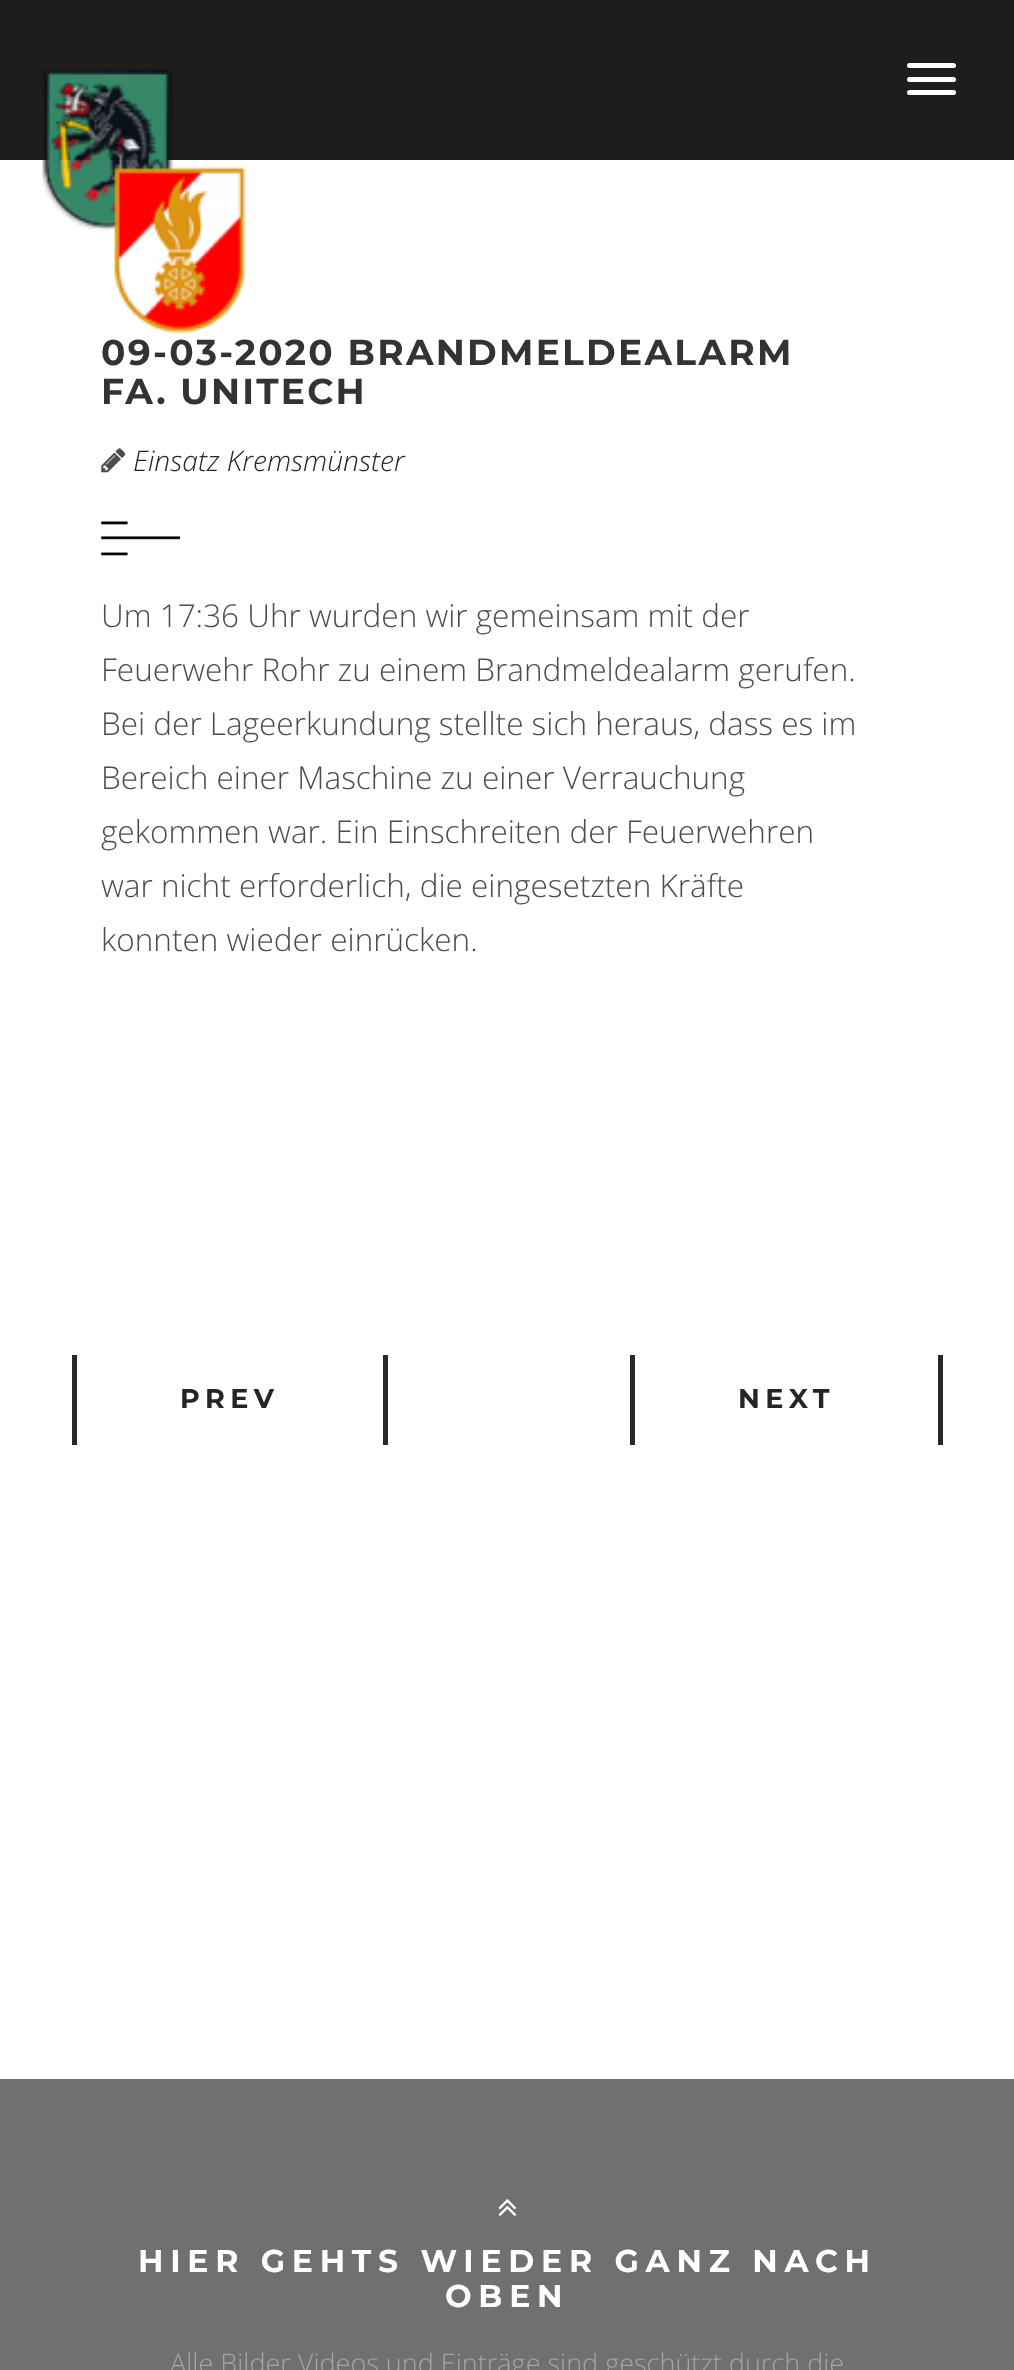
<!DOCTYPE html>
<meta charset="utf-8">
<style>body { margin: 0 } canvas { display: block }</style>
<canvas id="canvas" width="1014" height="2370"></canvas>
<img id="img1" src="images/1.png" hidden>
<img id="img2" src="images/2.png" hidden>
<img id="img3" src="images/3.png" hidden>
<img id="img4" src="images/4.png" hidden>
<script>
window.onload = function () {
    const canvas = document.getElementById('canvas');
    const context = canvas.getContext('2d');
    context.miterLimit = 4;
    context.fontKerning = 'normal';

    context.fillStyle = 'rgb(255, 255, 255)';
    context.fillRect(0, 0, 1014, 2370);
    context.fillStyle = 'rgb(30, 28, 28)';
    context.fillRect(0, 0, 1014, 160);
    context.drawImage(document.getElementById('img1'), 42, 69, 204, 265);
    context.fillStyle = 'rgb(255, 255, 255)';
    context.beginPath();
    context.roundRect(907, 63, 49, 5, 2.5);
    context.fill();
    context.beginPath();
    context.roundRect(907, 77, 49, 5, 2.5);
    context.fill();
    context.beginPath();
    context.roundRect(907, 90, 49, 5, 2.5);
    context.fill();
    context.drawImage(document.getElementById('img2'), 101, 448, 25, 25);
    context.drawImage(document.getElementById('img3'), 101, 521, 79, 35);
    context.fillStyle = 'rgb(40, 40, 40)';
    context.fillRect(72, 1355, 5, 90);
    context.fillRect(383, 1355, 5, 90);
    context.fillRect(630, 1355, 5, 90);
    context.fillRect(938, 1355, 5, 90);
    context.fillStyle = 'rgb(112, 112, 112)';
    context.fillRect(0, 2079, 1014, 291);
    context.drawImage(document.getElementById('img4'), 498, 2199, 19, 17);
    context.letterSpacing = '2.25px';
    context.font = 'bold 36px Montserrat';
    context.fillStyle = 'rgb(51, 51, 51)';
    context.fillText('09-03-2020 BRANDMELDEALARM', 101, 365);
    context.fillText('FA. UNITECH', 101, 404);
    context.letterSpacing = '0px';
    context.font = 'italic 300 28.25px Open Sans';
    context.fillStyle = 'rgb(37, 37, 37)';
    context.fillText('Einsatz Kremsmünster', 133, 471);
    context.font = '300 31.5px Open Sans';
    context.fillStyle = 'rgb(76, 76, 76)';
    context.fillText('Um 17:36 Uhr wurden wir gemeinsam mit der', 101, 627);
    context.fillText('Feuerwehr Rohr zu einem Brandmeldealarm gerufen.', 101, 681);
    context.fillText('Bei der Lageerkundung stellte sich heraus, dass es im', 101, 735);
    context.fillText('Bereich einer Maschine zu einer Verrauchung', 101, 789);
    context.fillText('gekommen war. Ein Einschreiten der Feuerwehren', 101, 843);
    context.fillText('war nicht erforderlich, die eingesetzten Kräfte', 101, 897);
    context.fillText('konnten wieder einrücken.', 101, 951);
    context.letterSpacing = '5.5px';
    context.font = 'bold 27px Montserrat';
    context.fillStyle = 'rgb(37, 37, 37)';
    context.fillText('PREV', 180, 1408);
    context.fillText('NEXT', 738, 1408);
    context.letterSpacing = '6.75px';
    context.font = 'bold 31.5px Montserrat';
    context.fillStyle = 'rgb(255, 255, 255)';
    context.fillText('HIER GEHTS WIEDER GANZ NACH', 138, 2272);
    context.fillText('OBEN', 445, 2307);
    context.letterSpacing = '0px';
    context.font = '300 27px Open Sans';
    context.fillStyle = 'rgb(165, 165, 165)';
    context.fillText('Alle Bilder Videos und Einträge sind geschützt durch die', 170, 2373);
};
</script>
